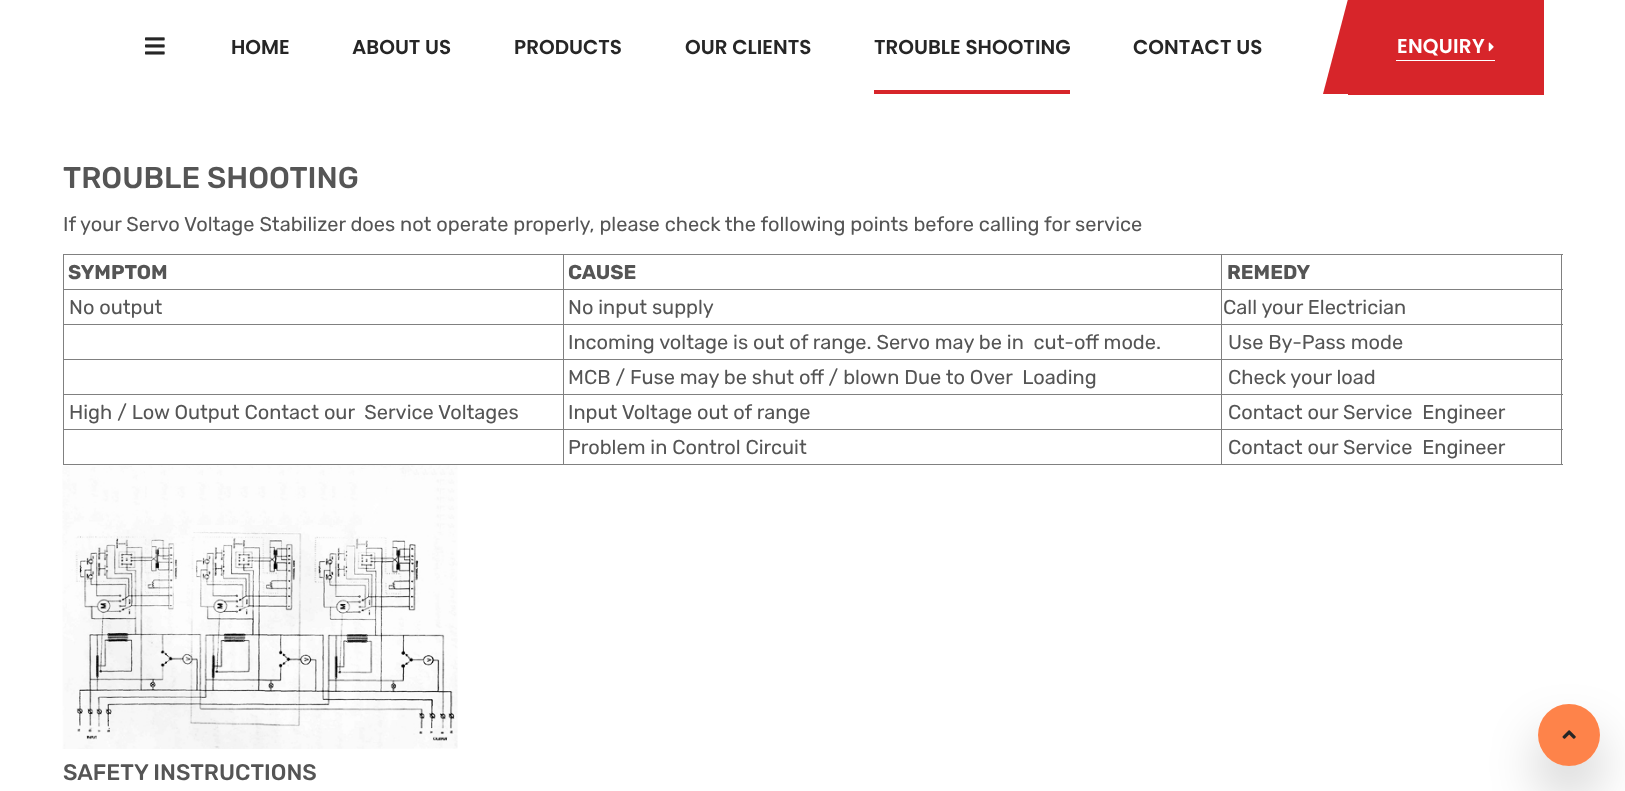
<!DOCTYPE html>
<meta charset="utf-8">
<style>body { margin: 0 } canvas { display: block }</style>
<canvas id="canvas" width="1625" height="791"></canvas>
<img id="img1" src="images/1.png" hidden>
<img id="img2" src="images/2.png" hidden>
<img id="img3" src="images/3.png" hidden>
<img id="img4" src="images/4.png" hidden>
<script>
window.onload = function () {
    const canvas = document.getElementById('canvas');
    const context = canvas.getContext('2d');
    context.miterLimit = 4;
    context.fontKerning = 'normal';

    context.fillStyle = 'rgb(255, 255, 255)';
    context.fillRect(0, 0, 1625, 791);
    context.drawImage(document.getElementById('img1'), 145, 37, 20, 18);
    context.fillStyle = 'rgb(215, 37, 42)';
    context.fillRect(874, 90, 196, 4);
    context.beginPath();
    context.moveTo(1348, -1);
    context.lineTo(1379, -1);
    context.lineTo(1354, 94);
    context.lineTo(1323, 94);
    context.closePath();
    context.fill();
    context.fillRect(1348, 0, 196, 95);
    context.fillStyle = 'rgb(255, 255, 255)';
    context.fillRect(1396, 60, 99, 1);
    context.drawImage(document.getElementById('img2'), 1488, 42, 6, 10);
    context.fillStyle = 'rgb(128, 128, 128)';
    context.fillRect(63, 254, 1500, 1);
    context.fillRect(1561, 254, 1, 211);
    context.fillRect(63, 464, 1500, 1);
    context.fillRect(63, 254, 1, 211);
    context.fillRect(1221, 289, 342, 1);
    context.fillRect(1221, 324, 342, 1);
    context.fillRect(1221, 359, 342, 1);
    context.fillRect(1221, 394, 342, 1);
    context.fillRect(1221, 429, 342, 1);
    context.fillRect(1221, 429, 1, 36);
    context.fillRect(563, 429, 660, 1);
    context.fillRect(1221, 394, 1, 36);
    context.fillRect(563, 394, 660, 1);
    context.fillRect(1221, 359, 1, 36);
    context.fillRect(563, 359, 660, 1);
    context.fillRect(1221, 324, 1, 36);
    context.fillRect(563, 324, 660, 1);
    context.fillRect(1221, 289, 1, 36);
    context.fillRect(563, 289, 660, 1);
    context.fillRect(563, 429, 1, 36);
    context.fillRect(63, 429, 501, 1);
    context.fillRect(563, 394, 1, 36);
    context.fillRect(63, 394, 501, 1);
    context.fillRect(563, 359, 1, 36);
    context.fillRect(63, 359, 501, 1);
    context.fillRect(563, 324, 1, 36);
    context.fillRect(63, 324, 501, 1);
    context.fillRect(563, 289, 1, 36);
    context.fillRect(63, 289, 501, 1);
    context.fillRect(563, 254, 1, 36);
    context.fillRect(1221, 254, 1, 36);
    context.drawImage(document.getElementById('img3'), 62, 465, 396, 284);
    context.save();
    context.beginPath();
    context.moveTo(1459, 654);
    context.lineTo(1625, 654);
    context.lineTo(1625, 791);
    context.lineTo(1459, 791);
    context.closePath();
    context.moveTo(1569, 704);
    context.bezierCurveTo(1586, 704, 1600, 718, 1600, 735);
    context.bezierCurveTo(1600, 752, 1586, 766, 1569, 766);
    context.bezierCurveTo(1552, 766, 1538, 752, 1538, 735);
    context.bezierCurveTo(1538, 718, 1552, 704, 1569, 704);
    context.closePath();
    context.clip('evenodd');
    context.fillStyle = 'rgba(0, 0, 0, 0.2)';
    context.filter = 'blur(26px)';
    context.beginPath();
    context.roundRect(1538, 733, 62, 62, 31);
    context.fill();
    context.filter = 'none';
    context.restore();
    context.fillStyle = 'rgba(254, 90, 14, 0.75)';
    context.beginPath();
    context.arc(1569, 735, 31, 0, 2 * Math.PI);
    context.fill();
    context.drawImage(document.getElementById('img4'), 1562, 730, 14, 9);
    context.font = '600 20px Poppins';
    context.fillStyle = 'rgb(38, 38, 38)';
    context.fillText('HOME', 231, 54);
    context.fillText('ABOUT US', 352, 54);
    context.fillText('PRODUCTS', 514, 54);
    context.fillText('OUR CLIENTS', 685, 54);
    context.fillText('TROUBLE SHOOTING', 874, 54);
    context.fillText('CONTACT US', 1133, 54);
    context.letterSpacing = '0.25px';
    context.fillStyle = 'rgb(255, 255, 255)';
    context.fillText('ENQUIRY', 1397, 53);
    context.letterSpacing = '0px';
    context.font = '500 30px Rubik';
    context.fillStyle = 'rgb(85, 85, 85)';
    context.fillText('TROUBLE SHOOTING', 63, 188);
    context.font = '20px Rubik';
    context.fillText('If your Servo Voltage Stabilizer does not operate properly, please check the following points before calling for service', 63, 231);
    context.font = 'bold 20px Rubik';
    context.fillText('SYMPTOM', 68, 279);
    context.fillText('CAUSE', 568, 279);
    context.fillText('REMEDY', 1227, 279);
    context.font = '20px Rubik';
    context.fillText('No output', 69, 314);
    context.fillText('No input supply', 568, 314);
    context.fillText('Call your Electrician', 1223, 314);
    context.fillText('Incoming voltage is out of range. Servo may be in  cut-off mode.', 568, 349);
    context.fillText('Use By-Pass mode', 1228, 349);
    context.fillText('MCB / Fuse may be shut off / blown Due to Over  Loading', 568, 384);
    context.fillText('Check your load', 1228, 384);
    context.fillText('High / Low Output Contact our  Service Voltages', 69, 419);
    context.fillText('Input Voltage out of range', 568, 419);
    context.fillText('Contact our Service  Engineer', 1228, 419);
    context.fillText('Problem in Control Circuit', 568, 454);
    context.fillText('Contact our Service  Engineer', 1228, 454);
    context.font = '500 22.5px Rubik';
    context.fillText('SAFETY INSTRUCTIONS', 63, 780);
};
</script>
